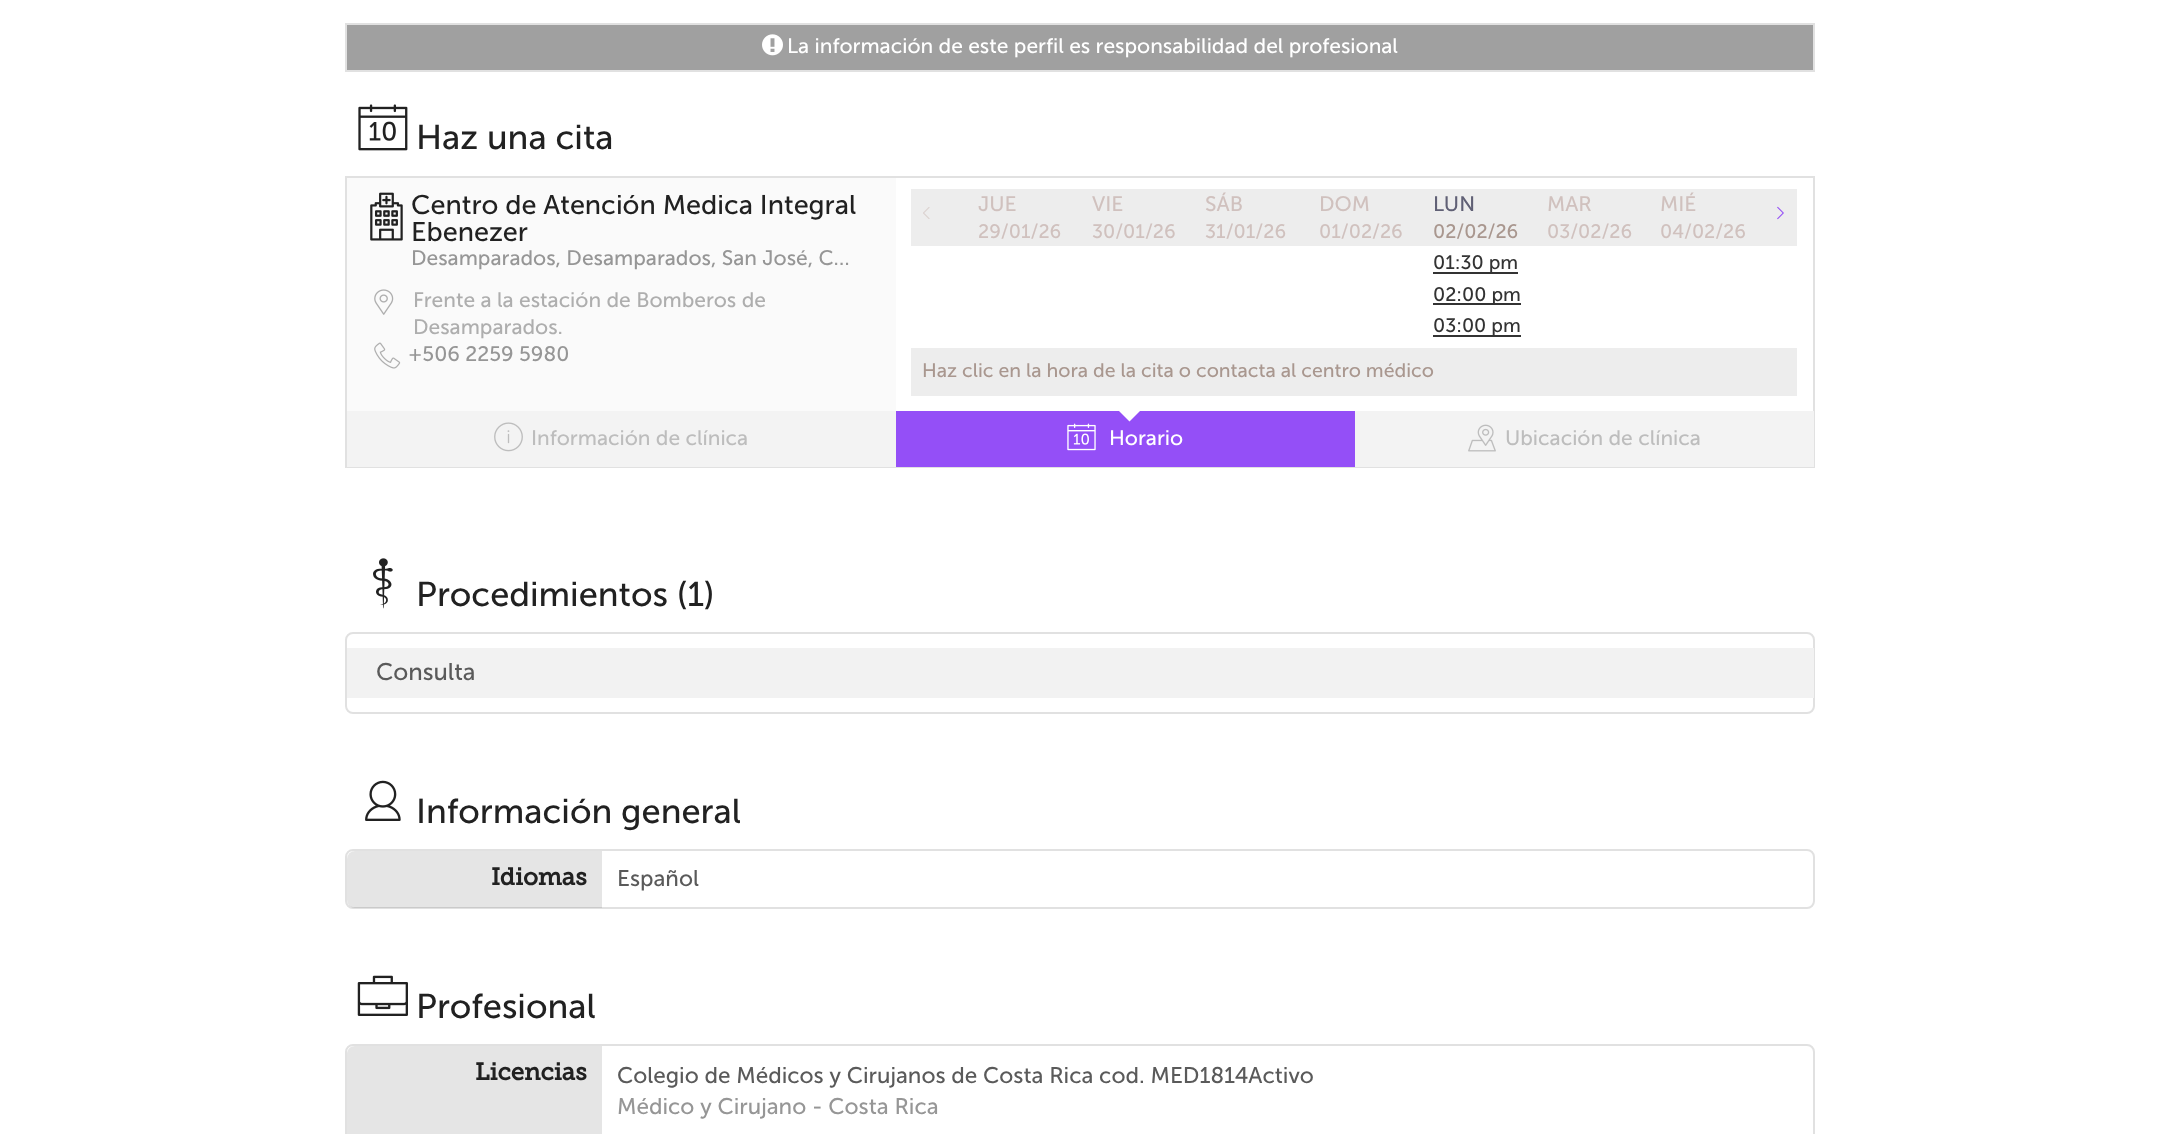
<!DOCTYPE html>
<meta charset="utf-8">
<style>body { margin: 0 } canvas { display: block }</style>
<canvas id="canvas" width="2160" height="1134"></canvas>
<img id="img1" src="images/1.png" hidden>
<img id="img2" src="images/2.png" hidden>
<img id="img3" src="images/3.png" hidden>
<img id="img4" src="images/4.png" hidden>
<img id="img5" src="images/5.png" hidden>
<img id="img6" src="images/6.png" hidden>
<img id="img7" src="images/7.png" hidden>
<img id="img8" src="images/8.png" hidden>
<img id="img9" src="images/9.png" hidden>
<img id="img10" src="images/10.png" hidden>
<img id="img11" src="images/11.png" hidden>
<img id="img12" src="images/12.png" hidden>
<img id="img13" src="images/13.png" hidden>
<script>
window.onload = function () {
    const canvas = document.getElementById('canvas');
    const context = canvas.getContext('2d');
    context.miterLimit = 4;
    context.fontKerning = 'normal';

    context.fillStyle = 'rgb(255, 255, 255)';
    context.fillRect(0, 0, 2160, 1134);
    context.fillStyle = 'rgb(160, 160, 160)';
    context.beginPath();
    context.rect(346, 24, 1468, 47);
    context.fill();
    context.strokeStyle = 'rgb(225, 225, 225)';
    context.lineWidth = 2;
    context.stroke();
    context.drawImage(document.getElementById('img1'), 762, 34, 21, 22);
    context.drawImage(document.getElementById('img2'), 358, 104, 50, 47);
    context.fillStyle = 'rgb(250, 250, 250)';
    context.fillRect(347, 178, 549, 233);
    context.strokeRect(346, 177, 1468, 290);
    context.fillStyle = 'rgb(237, 237, 237)';
    context.fillRect(911, 189, 886, 57);
    context.fillStyle = 'rgb(51, 51, 51)';
    context.fillRect(1433, 272, 85, 2);
    context.fillRect(1433, 303, 88, 2);
    context.fillRect(1433, 335, 88, 2);
    context.drawImage(document.getElementById('img3'), 923, 207, 7, 12);
    context.drawImage(document.getElementById('img4'), 1777, 206, 7, 14);
    context.fillStyle = 'rgb(237, 237, 237)';
    context.fillRect(911, 348, 886, 48);
    context.drawImage(document.getElementById('img5'), 370, 192, 33, 49);
    context.drawImage(document.getElementById('img6'), 374, 289, 20, 26);
    context.drawImage(document.getElementById('img7'), 374, 342, 27, 27);
    context.fillStyle = 'rgb(243, 243, 243)';
    context.fillRect(347, 411, 549, 56);
    context.drawImage(document.getElementById('img8'), 494, 422, 29, 30);
    context.fillStyle = 'rgb(148, 79, 247)';
    context.fillRect(896, 411, 459, 56);
    context.fillStyle = 'rgb(255, 255, 255)';
    context.beginPath();
    context.moveTo(1119, 411);
    context.lineTo(1140, 411);
    context.lineTo(1129.5, 421.5);
    context.closePath();
    context.fill();
    context.drawImage(document.getElementById('img9'), 1067, 423, 29, 28);
    context.fillStyle = 'rgb(243, 243, 243)';
    context.fillRect(1355, 411, 459, 56);
    context.drawImage(document.getElementById('img10'), 1468, 424, 28, 28);
    context.drawImage(document.getElementById('img11'), 373, 558, 20, 51);
    context.beginPath();
    context.roundRect(346, 633, 1468, 80, 7);
    context.stroke();
    context.fillStyle = 'rgb(242, 242, 242)';
    context.fillRect(347, 648, 1467, 50);
    context.drawImage(document.getElementById('img12'), 365, 780, 36, 41);
    context.beginPath();
    context.roundRect(346, 850, 1468, 58, 7);
    context.stroke();
    context.fillStyle = 'rgba(0, 0, 0, 0.1)';
    context.beginPath();
    context.roundRect(347, 851, 255, 57, [8, 0, 0, 8]);
    context.fill();
    context.drawImage(document.getElementById('img13'), 357, 975, 51, 41);
    context.beginPath();
    context.roundRect(346, 1045, 1468, 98, 7);
    context.stroke();
    context.fillStyle = 'rgb(229, 229, 229)';
    context.beginPath();
    context.moveTo(355, 1046);
    context.lineTo(602, 1046);
    context.lineTo(602, 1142);
    context.lineTo(355, 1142);
    context.bezierCurveTo(350.5, 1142, 347, 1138.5, 347, 1134);
    context.lineTo(347, 1054);
    context.bezierCurveTo(347, 1049.5, 350.5, 1046, 355, 1046);
    context.closePath();
    context.fill();
    context.font = '21px Museo Sans';
    context.fillStyle = 'rgb(255, 255, 255)';
    context.fillText('La información de este perfil es responsabilidad del profesional', 787, 53);
    context.font = '34.5px Museo Sans';
    context.fillStyle = 'rgb(33, 33, 33)';
    context.fillText('Haz una cita', 416, 149);
    context.font = '21px Museo Sans';
    context.fillStyle = 'rgb(208, 193, 190)';
    context.fillText('JUE', 978, 211);
    context.font = '19.5px Museo Sans';
    context.fillText('29/01/26', 978, 238);
    context.font = '21px Museo Sans';
    context.fillText('VIE', 1092, 211);
    context.font = '19.5px Museo Sans';
    context.fillText('30/01/26', 1092, 238);
    context.font = '21px Museo Sans';
    context.fillText('SÁB', 1205, 211);
    context.font = '19.5px Museo Sans';
    context.fillText('31/01/26', 1205, 238);
    context.font = '21px Museo Sans';
    context.fillText('DOM', 1319, 211);
    context.font = '19.5px Museo Sans';
    context.fillText('01/02/26', 1319, 238);
    context.font = '21px Museo Sans';
    context.fillStyle = 'rgb(96, 96, 117)';
    context.fillText('LUN', 1433, 211);
    context.font = '19.5px Museo Sans';
    context.fillStyle = 'rgb(169, 151, 143)';
    context.fillText('02/02/26', 1433, 238);
    context.fillStyle = 'rgb(51, 51, 51)';
    context.fillText('01:30 pm', 1433, 269);
    context.fillText('02:00 pm', 1433, 301);
    context.fillText('03:00 pm', 1433, 332);
    context.font = '21px Museo Sans';
    context.fillStyle = 'rgb(208, 193, 190)';
    context.fillText('MAR', 1547, 211);
    context.font = '19.5px Museo Sans';
    context.fillText('03/02/26', 1547, 238);
    context.font = '21px Museo Sans';
    context.fillText('MIÉ', 1660, 211);
    context.font = '19.5px Museo Sans';
    context.fillText('04/02/26', 1660, 238);
    context.fillStyle = 'rgb(169, 151, 143)';
    context.fillText('Haz clic en la hora de la cita o contacta al centro médico', 922, 377);
    context.font = '27px Museo Sans';
    context.fillStyle = 'rgb(33, 33, 33)';
    context.fillText('Centro de Atención Medica Integral', 411, 214);
    context.fillText('Ebenezer', 411, 241);
    context.font = '21px Museo Sans';
    context.fillStyle = 'rgb(150, 150, 150)';
    context.fillText('Desamparados, Desamparados, San José, C…', 411, 265);
    context.fillStyle = 'rgb(174, 174, 174)';
    context.fillText('Frente a la estación de Bomberos de', 413, 307);
    context.fillText('Desamparados.', 413, 334);
    context.fillStyle = 'rgb(150, 150, 150)';
    context.fillText('+506 2259 5980', 408, 361);
    context.fillStyle = 'rgb(189, 189, 189)';
    context.fillText('Información de clínica', 531, 445);
    context.fillStyle = 'rgb(255, 255, 255)';
    context.fillText('Horario', 1109, 445);
    context.fillStyle = 'rgb(189, 189, 189)';
    context.fillText('Ubicación de clínica', 1505, 445);
    context.font = '34.5px Museo Sans';
    context.fillStyle = 'rgb(33, 33, 33)';
    context.fillText('Procedimientos (1)', 416, 606);
    context.font = '24px Museo Sans';
    context.fillStyle = 'rgb(90, 90, 90)';
    context.fillText('Consulta', 376, 680);
    context.font = '34.5px Museo Sans';
    context.fillStyle = 'rgb(33, 33, 33)';
    context.fillText('Información general', 416, 823);
    context.font = 'bold 24px Museo Slab';
    context.fillText('Idiomas', 491, 885);
    context.font = '22.5px Museo Sans';
    context.fillStyle = 'rgb(90, 90, 90)';
    context.fillText('Español', 617, 886);
    context.font = '34.5px Museo Sans';
    context.fillStyle = 'rgb(33, 33, 33)';
    context.fillText('Profesional', 416, 1018);
    context.font = 'bold 24px Museo Slab';
    context.fillText('Licencias', 475, 1080);
    context.font = '22.5px Museo Sans';
    context.fillStyle = 'rgb(90, 90, 90)';
    context.fillText('Colegio de Médicos y Cirujanos de Costa Rica cod. MED1814Activo', 617, 1083);
    context.fillStyle = 'rgb(150, 150, 150)';
    context.fillText('Médico y Cirujano - Costa Rica', 617, 1114);
};
</script>
